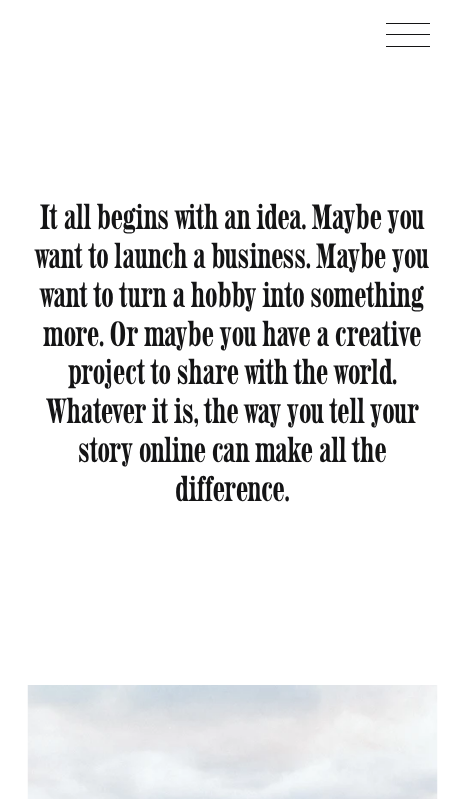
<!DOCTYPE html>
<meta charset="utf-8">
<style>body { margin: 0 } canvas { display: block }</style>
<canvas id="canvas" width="464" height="799"></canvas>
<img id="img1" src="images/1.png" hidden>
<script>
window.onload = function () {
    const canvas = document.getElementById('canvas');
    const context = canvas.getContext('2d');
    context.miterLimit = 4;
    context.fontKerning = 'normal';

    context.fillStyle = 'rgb(255, 255, 255)';
    context.fillRect(0, 0, 464, 799);
    context.fillStyle = 'rgb(20, 20, 21)';
    context.fillRect(386, 23, 44, 1);
    context.fillRect(386, 34, 44, 1);
    context.fillRect(386, 46, 44, 1);
    context.drawImage(document.getElementById('img1'), 27, 685, 411, 114);
    context.letterSpacing = '-0.35px';
    context.font = '34.4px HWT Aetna';
    context.fillText('It all begins with an idea. Maybe you', 40, 229);
    context.fillText('want to launch a business. Maybe you', 35, 268);
    context.fillText('want to turn a hobby into something', 40, 307);
    context.fillText('more. Or maybe you have a creative', 43, 346);
    context.fillText('project to share with the world.', 68, 384);
    context.fillText('Whatever it is, the way you tell your', 46, 423);
    context.fillText('story online can make all the', 78, 462);
    context.fillText('difference.', 175, 501);
};
</script>
